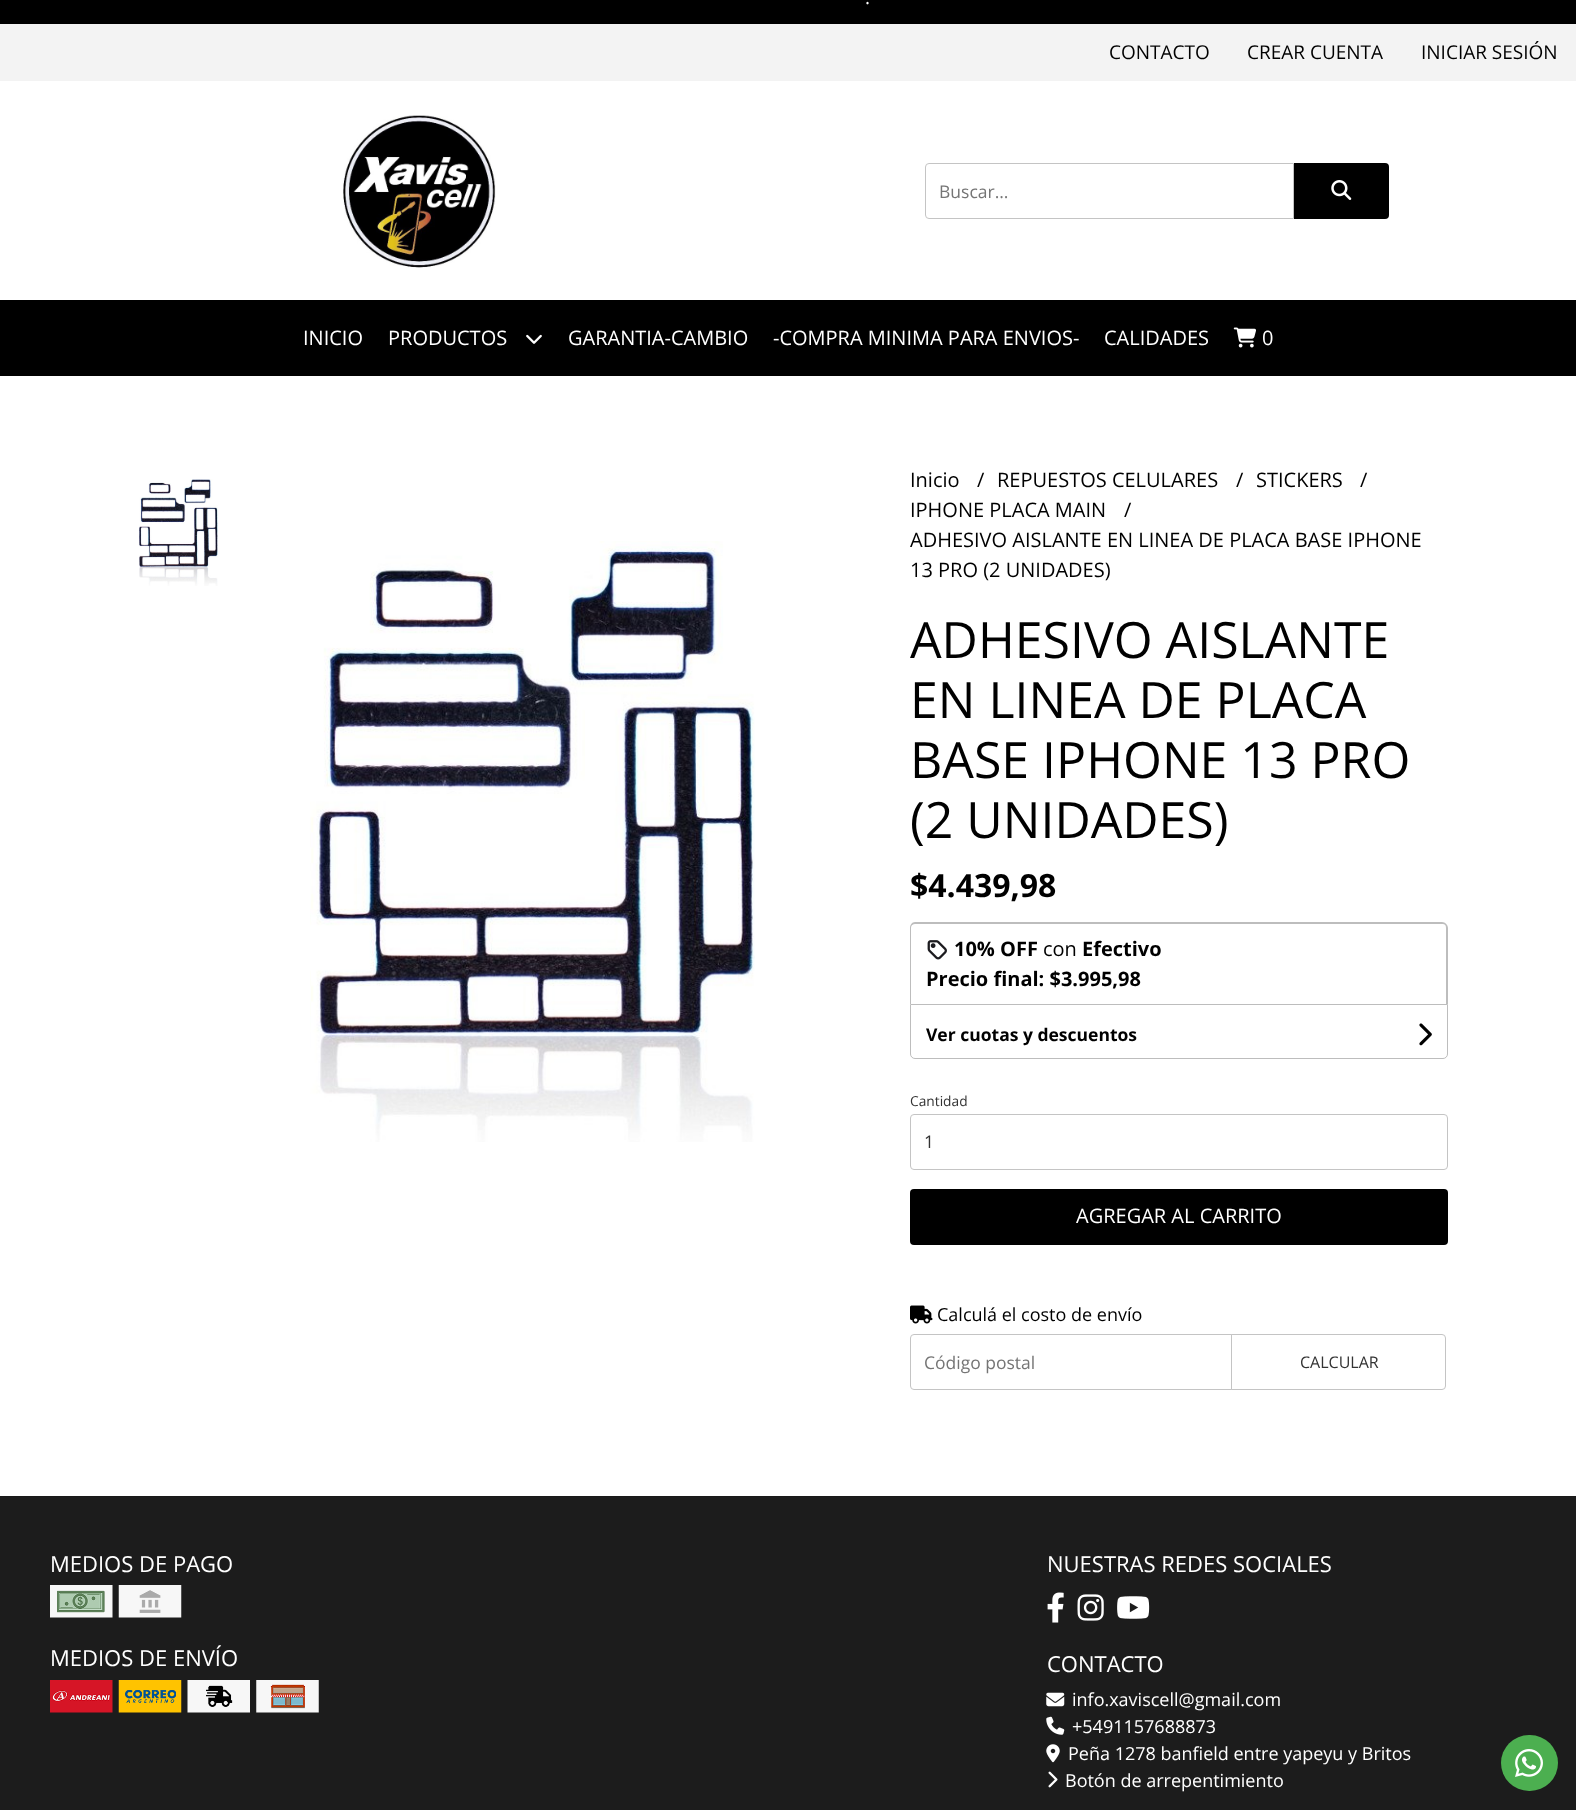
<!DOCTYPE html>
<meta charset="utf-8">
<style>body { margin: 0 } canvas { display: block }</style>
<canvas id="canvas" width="1576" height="1810"></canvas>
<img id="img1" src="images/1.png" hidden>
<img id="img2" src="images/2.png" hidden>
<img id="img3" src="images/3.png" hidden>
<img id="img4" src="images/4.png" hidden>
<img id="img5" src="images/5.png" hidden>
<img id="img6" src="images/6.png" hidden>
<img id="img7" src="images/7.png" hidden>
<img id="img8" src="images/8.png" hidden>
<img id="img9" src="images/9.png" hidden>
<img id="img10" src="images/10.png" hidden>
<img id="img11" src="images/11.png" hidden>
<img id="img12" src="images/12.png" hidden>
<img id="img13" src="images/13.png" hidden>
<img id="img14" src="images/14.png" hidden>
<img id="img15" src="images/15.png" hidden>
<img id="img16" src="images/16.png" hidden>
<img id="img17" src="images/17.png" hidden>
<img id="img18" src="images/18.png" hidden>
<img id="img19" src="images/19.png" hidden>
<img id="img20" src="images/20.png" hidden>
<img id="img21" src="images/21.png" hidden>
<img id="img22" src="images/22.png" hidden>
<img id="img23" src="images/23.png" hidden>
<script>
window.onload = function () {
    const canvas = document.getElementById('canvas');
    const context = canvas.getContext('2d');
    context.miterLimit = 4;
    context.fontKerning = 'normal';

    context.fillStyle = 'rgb(255, 255, 255)';
    context.fillRect(0, 0, 1576, 1810);
    context.fillStyle = 'rgb(0, 0, 0)';
    context.fillRect(0, 0, 1576, 24);
    context.fillStyle = 'rgb(243, 243, 243)';
    context.fillRect(0, 24, 1576, 57);
    context.drawImage(document.getElementById('img1'), 343, 115, 153, 153);
    context.beginPath();
    context.roundRect(925.5, 163.5, 368, 55, [3.5, 0, 0, 3.5]);
    context.strokeStyle = 'rgb(196, 196, 196)';
    context.stroke();
    context.fillStyle = 'rgb(0, 0, 0)';
    context.beginPath();
    context.roundRect(1294, 163, 95, 56, [0, 4, 4, 0]);
    context.fill();
    context.drawImage(document.getElementById('img2'), 1331, 180, 21, 20);
    context.fillRect(0, 300, 1576, 76);
    context.drawImage(document.getElementById('img3'), 526, 334, 16, 10);
    context.drawImage(document.getElementById('img4'), 1233, 327, 23, 21);
    context.drawImage(document.getElementById('img5'), 139, 479, 79, 107);
    context.drawImage(document.getElementById('img6'), 310, 541, 445, 601);
    context.fillStyle = 'rgb(189, 189, 189)';
    context.beginPath();
    context.moveTo(915, 922);
    context.lineTo(1442, 922);
    context.bezierCurveTo(1445, 922, 1448, 925, 1448, 928);
    context.lineTo(1448, 1004);
    context.lineTo(910, 1004);
    context.lineTo(910, 928);
    context.bezierCurveTo(910, 925, 912, 922, 915, 922);
    context.closePath();
    context.moveTo(915, 924);
    context.lineTo(1442, 924);
    context.bezierCurveTo(1445, 924, 1446, 925, 1446, 928);
    context.lineTo(1446, 1004);
    context.lineTo(911, 1004);
    context.lineTo(911, 928);
    context.bezierCurveTo(911, 925, 913, 924, 915, 924);
    context.closePath();
    context.fill('evenodd');
    context.drawImage(document.getElementById('img7'), 927, 940, 20, 20);
    context.beginPath();
    context.roundRect(910.5, 1004.5, 537, 54, [0, 0, 4.5, 4.5]);
    context.strokeStyle = 'rgb(189, 189, 189)';
    context.stroke();
    context.drawImage(document.getElementById('img8'), 1419, 1023, 13, 23);
    context.beginPath();
    context.roundRect(910.5, 1114.5, 537, 55, 3.5);
    context.strokeStyle = 'rgb(196, 196, 196)';
    context.stroke();
    context.fillStyle = 'rgb(0, 0, 0)';
    context.beginPath();
    context.roundRect(910, 1189, 538, 56, 4);
    context.fill();
    context.drawImage(document.getElementById('img9'), 910, 1305, 23, 19);
    context.beginPath();
    context.roundRect(910.5, 1334.5, 322, 55, [3.5, 0, 0, 3.5]);
    context.stroke();
    context.fillStyle = 'rgb(255, 255, 255)';
    context.beginPath();
    context.roundRect(1231.5, 1334.5, 214, 55, [0, 3.5, 3.5, 0]);
    context.fill();
    context.stroke();
    context.fillStyle = 'rgb(28, 28, 28)';
    context.fillRect(0, 1497, 1576, 313);
    context.fillStyle = 'rgb(25, 25, 25)';
    context.fillRect(0, 1496, 1576, 1);
    context.drawImage(document.getElementById('img10'), 50, 1585, 63, 33);
    context.drawImage(document.getElementById('img11'), 118, 1585, 64, 33);
    context.drawImage(document.getElementById('img12'), 50, 1680, 63, 33);
    context.drawImage(document.getElementById('img13'), 118, 1680, 64, 33);
    context.drawImage(document.getElementById('img14'), 187, 1680, 63, 33);
    context.drawImage(document.getElementById('img15'), 256, 1680, 63, 33);
    context.drawImage(document.getElementById('img16'), 1047, 1592, 17, 31);
    context.drawImage(document.getElementById('img17'), 1077, 1594, 27, 27);
    context.drawImage(document.getElementById('img18'), 1117, 1596, 33, 23);
    context.drawImage(document.getElementById('img19'), 1046, 1692, 19, 15);
    context.drawImage(document.getElementById('img20'), 1046, 1716, 19, 19);
    context.drawImage(document.getElementById('img21'), 1046, 1744, 14, 19);
    context.drawImage(document.getElementById('img22'), 1048, 1771, 10, 17);
    context.fillStyle = 'rgb(76, 175, 80)';
    context.beginPath();
    context.roundRect(1501, 1735, 57, 56, 28);
    context.fill();
    context.drawImage(document.getElementById('img23'), 1515, 1749, 28, 28);
    context.font = '19px Open Sans';
    context.fillStyle = 'rgb(255, 255, 255)';
    context.fillText('.', 865, 4);
    context.fillStyle = 'rgb(0, 0, 0)';
    context.fillText('CONTACTO', 1109, 59);
    context.fillText('CREAR CUENTA', 1247, 59);
    context.fillText('INICIAR SESIÓN', 1421, 59);
    context.font = '17.5px Open Sans';
    context.fillStyle = 'rgb(117, 117, 117)';
    context.fillText('Buscar...', 939, 198);
    context.font = '20px Open Sans';
    context.fillStyle = 'rgb(255, 255, 255)';
    context.fillText('INICIO', 303, 345);
    context.fillText('PRODUCTOS', 388, 345);
    context.fillText('GARANTIA-CAMBIO', 568, 345);
    context.fillText('-COMPRA MINIMA PARA ENVIOS-', 773, 345);
    context.fillText('CALIDADES', 1104, 345);
    context.fillText('0', 1262, 345);
    context.fillStyle = 'rgb(0, 0, 0)';
    context.fillText('Inicio', 910, 487);
    context.fillText('/', 977, 487);
    context.fillText('REPUESTOS CELULARES', 997, 487);
    context.fillText('/', 1236, 487);
    context.fillText('STICKERS', 1256, 487);
    context.fillText('/', 1360, 487);
    context.fillText('IPHONE PLACA MAIN', 910, 517);
    context.fillText('/', 1124, 517);
    context.fillText('ADHESIVO AISLANTE EN LINEA DE PLACA BASE IPHONE', 910, 547);
    context.fillText('13 PRO (2 UNIDADES)', 910, 577);
    context.font = '50px Open Sans';
    context.fillText('ADHESIVO AISLANTE', 910, 658);
    context.fillText('EN LINEA DE PLACA', 910, 718);
    context.fillText('BASE IPHONE 13 PRO', 910, 778);
    context.fillText('(2 UNIDADES)', 910, 838);
    context.font = 'bold 32px Open Sans';
    context.fillText('$4.439,98', 910, 897);
    context.font = 'bold 20px Open Sans';
    context.fillText('10% OFF', 954, 956);
    context.font = '20px Open Sans';
    context.fillText('con', 1043, 956);
    context.font = 'bold 20px Open Sans';
    context.fillText('Efectivo', 1082, 956);
    context.fillText('Precio final: $3.995,98', 926, 986);
    context.font = 'bold 17.5px Open Sans';
    context.fillText('Ver cuotas y descuentos', 926, 1041);
    context.font = '13.75px Open Sans';
    context.fillStyle = 'rgb(51, 51, 51)';
    context.fillText('Cantidad', 910, 1106);
    context.font = '17.5px Open Sans';
    context.fillText('1', 924, 1148);
    context.font = '20px Open Sans';
    context.fillStyle = 'rgb(255, 255, 255)';
    context.fillText('AGREGAR AL CARRITO', 1076, 1223);
    context.font = '18px Open Sans';
    context.fillStyle = 'rgb(0, 0, 0)';
    context.fillText('Calculá el costo de envío', 937, 1321);
    context.font = '17.5px Open Sans';
    context.fillStyle = 'rgb(117, 117, 117)';
    context.fillText('Código postal', 924, 1369);
    context.font = '16px Open Sans';
    context.fillStyle = 'rgb(51, 51, 51)';
    context.fillText('CALCULAR', 1300, 1368);
    context.font = '22px Open Sans';
    context.fillStyle = 'rgb(255, 255, 255)';
    context.fillText('MEDIOS DE PAGO', 50, 1572);
    context.fillText('MEDIOS DE ENVÍO', 50, 1666);
    context.fillText('NUESTRAS REDES SOCIALES', 1047, 1572);
    context.fillText('CONTACTO', 1047, 1672);
    context.font = '18px Open Sans';
    context.fillText('info.xaviscell@gmail.com', 1072, 1706);
    context.fillText('+5491157688873', 1072, 1733);
    context.fillText('Peña 1278 banfield entre yapeyu y Britos', 1068, 1760);
    context.fillText('Botón de arrepentimiento', 1065, 1787);
};
</script>
